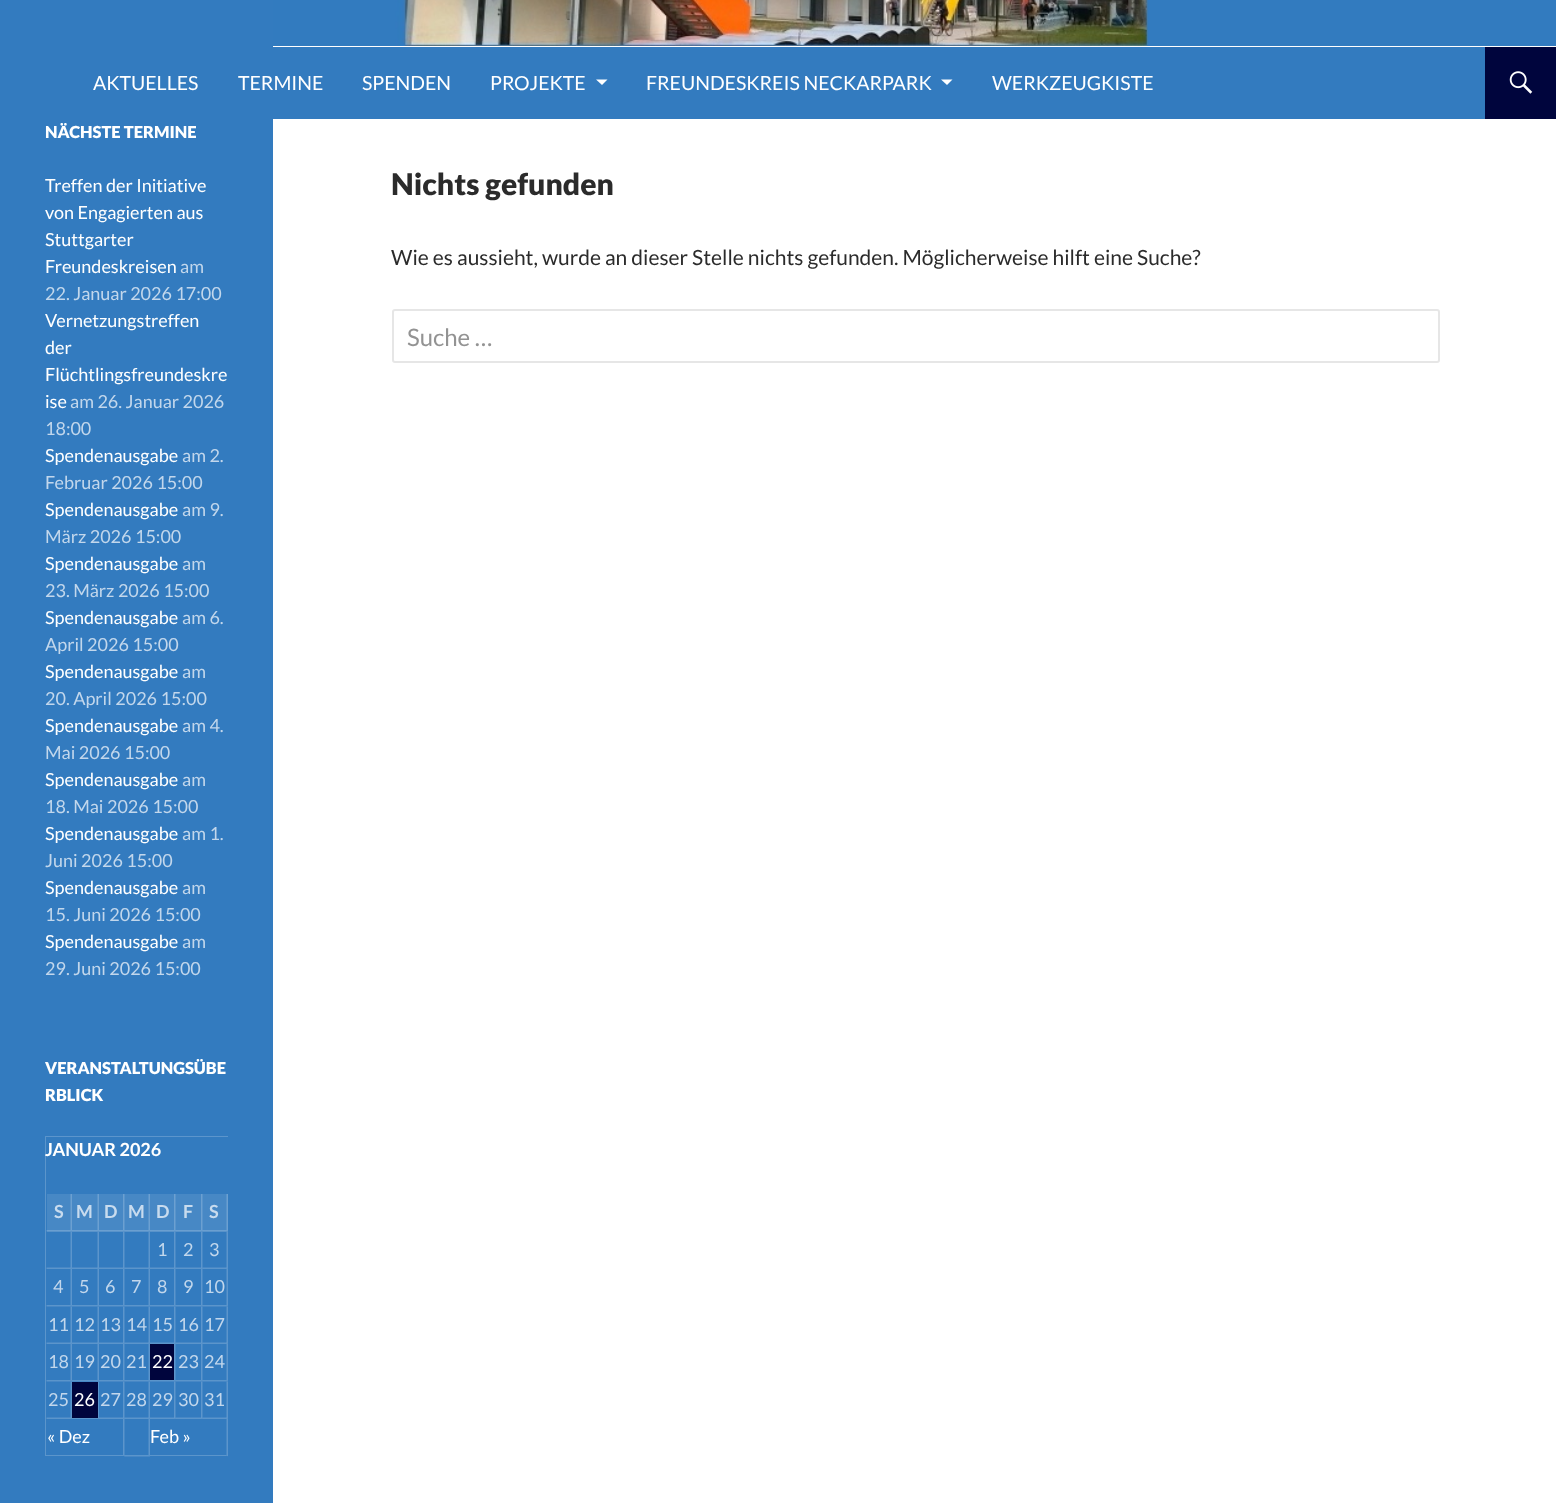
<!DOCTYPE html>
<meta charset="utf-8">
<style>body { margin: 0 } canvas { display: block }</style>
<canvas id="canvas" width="1556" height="1503"></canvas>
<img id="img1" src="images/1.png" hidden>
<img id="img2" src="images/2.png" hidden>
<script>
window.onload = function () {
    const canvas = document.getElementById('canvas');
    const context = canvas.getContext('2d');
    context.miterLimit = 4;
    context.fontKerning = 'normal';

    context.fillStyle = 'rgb(255, 255, 255)';
    context.fillRect(0, 0, 1556, 1503);
    context.fillStyle = 'rgb(51, 123, 191)';
    context.fillRect(0, 0, 273, 1503);
    context.drawImage(document.getElementById('img1'), 273, 0, 1283, 46);
    context.fillRect(273, 47, 1212, 72);
    context.fillStyle = 'rgb(255, 255, 255)';
    context.beginPath();
    context.moveTo(596, 79.5);
    context.lineTo(602, 85);
    context.lineTo(607.5, 79.5);
    context.closePath();
    context.fill();
    context.beginPath();
    context.moveTo(941, 79.5);
    context.lineTo(947, 85);
    context.lineTo(952.5, 79.5);
    context.closePath();
    context.fill();
    context.fillStyle = 'rgb(0, 5, 61)';
    context.fillRect(1485, 47, 71, 72);
    context.drawImage(document.getElementById('img2'), 1509, 71, 24, 23);
    context.fillStyle = 'rgb(92, 149, 204)';
    context.beginPath();
    context.moveTo(45, 1136);
    context.lineTo(228, 1136);
    context.lineTo(228, 1137);
    context.lineTo(46, 1137);
    context.closePath();
    context.fill();
    context.fillStyle = 'rgba(255, 255, 255, 0.2)';
    context.beginPath();
    context.moveTo(45, 1456);
    context.lineTo(45, 1136);
    context.lineTo(46, 1137);
    context.lineTo(46, 1456);
    context.closePath();
    context.fill();
    context.fillStyle = 'rgb(71, 136, 197)';
    context.fillRect(47, 1194, 181, 38);
    context.fillStyle = 'rgb(108, 160, 209)';
    context.beginPath();
    context.moveTo(72, 1194);
    context.lineTo(72, 1231.5);
    context.lineTo(70.5, 1230);
    context.lineTo(70.5, 1194);
    context.closePath();
    context.fill();
    context.fillStyle = 'rgba(255, 255, 255, 0.2)';
    context.beginPath();
    context.moveTo(72, 1231.5);
    context.lineTo(46.5, 1231.5);
    context.lineTo(46.5, 1230);
    context.lineTo(70.5, 1230);
    context.closePath();
    context.fill();
    context.fillStyle = 'rgb(108, 160, 209)';
    context.beginPath();
    context.moveTo(99, 1194);
    context.lineTo(99, 1231.5);
    context.lineTo(97.5, 1230);
    context.lineTo(97.5, 1194);
    context.closePath();
    context.fill();
    context.fillStyle = 'rgba(255, 255, 255, 0.2)';
    context.beginPath();
    context.moveTo(99, 1231.5);
    context.lineTo(72, 1231.5);
    context.lineTo(72, 1230);
    context.lineTo(97.5, 1230);
    context.closePath();
    context.fill();
    context.fillStyle = 'rgb(108, 160, 209)';
    context.beginPath();
    context.moveTo(124.5, 1194);
    context.lineTo(124.5, 1231.5);
    context.lineTo(123, 1230);
    context.lineTo(123, 1194);
    context.closePath();
    context.fill();
    context.fillStyle = 'rgba(255, 255, 255, 0.2)';
    context.beginPath();
    context.moveTo(124.5, 1231.5);
    context.lineTo(99, 1231.5);
    context.lineTo(99, 1230);
    context.lineTo(123, 1230);
    context.closePath();
    context.fill();
    context.fillStyle = 'rgb(108, 160, 209)';
    context.beginPath();
    context.moveTo(150, 1194);
    context.lineTo(150, 1231.5);
    context.lineTo(148.5, 1230);
    context.lineTo(148.5, 1194);
    context.closePath();
    context.fill();
    context.fillStyle = 'rgba(255, 255, 255, 0.2)';
    context.beginPath();
    context.moveTo(150, 1231.5);
    context.lineTo(124.5, 1231.5);
    context.lineTo(124.5, 1230);
    context.lineTo(148.5, 1230);
    context.closePath();
    context.fill();
    context.fillStyle = 'rgb(108, 160, 209)';
    context.beginPath();
    context.moveTo(175.5, 1194);
    context.lineTo(175.5, 1231.5);
    context.lineTo(174, 1230);
    context.lineTo(174, 1194);
    context.closePath();
    context.fill();
    context.fillStyle = 'rgba(255, 255, 255, 0.2)';
    context.beginPath();
    context.moveTo(175.5, 1231.5);
    context.lineTo(150, 1231.5);
    context.lineTo(150, 1230);
    context.lineTo(174, 1230);
    context.closePath();
    context.fill();
    context.fillStyle = 'rgb(108, 160, 209)';
    context.beginPath();
    context.moveTo(202.5, 1194);
    context.lineTo(202.5, 1231.5);
    context.lineTo(201, 1230);
    context.lineTo(201, 1194);
    context.closePath();
    context.fill();
    context.fillStyle = 'rgba(255, 255, 255, 0.2)';
    context.beginPath();
    context.moveTo(202.5, 1231.5);
    context.lineTo(175.5, 1231.5);
    context.lineTo(175.5, 1230);
    context.lineTo(201, 1230);
    context.closePath();
    context.fill();
    context.fillStyle = 'rgb(108, 160, 209)';
    context.beginPath();
    context.moveTo(228, 1194);
    context.lineTo(228, 1231.5);
    context.lineTo(226.5, 1230);
    context.lineTo(226.5, 1194);
    context.closePath();
    context.fill();
    context.fillStyle = 'rgba(255, 255, 255, 0.2)';
    context.beginPath();
    context.moveTo(228, 1231.5);
    context.lineTo(202.5, 1231.5);
    context.lineTo(202.5, 1230);
    context.lineTo(226.5, 1230);
    context.closePath();
    context.fill();
    context.fillStyle = 'rgb(92, 149, 204)';
    context.beginPath();
    context.moveTo(72, 1231.5);
    context.lineTo(72, 1269);
    context.lineTo(70.5, 1267.5);
    context.lineTo(70.5, 1231.5);
    context.closePath();
    context.fill();
    context.fillStyle = 'rgba(255, 255, 255, 0.2)';
    context.beginPath();
    context.moveTo(72, 1269);
    context.lineTo(46.5, 1269);
    context.lineTo(46.5, 1267.5);
    context.lineTo(70.5, 1267.5);
    context.closePath();
    context.fill();
    context.fillStyle = 'rgb(92, 149, 204)';
    context.beginPath();
    context.moveTo(99, 1231.5);
    context.lineTo(99, 1269);
    context.lineTo(97.5, 1267.5);
    context.lineTo(97.5, 1231.5);
    context.closePath();
    context.fill();
    context.fillStyle = 'rgba(255, 255, 255, 0.2)';
    context.beginPath();
    context.moveTo(99, 1269);
    context.lineTo(72, 1269);
    context.lineTo(72, 1267.5);
    context.lineTo(97.5, 1267.5);
    context.closePath();
    context.fill();
    context.fillStyle = 'rgb(92, 149, 204)';
    context.beginPath();
    context.moveTo(124.5, 1231.5);
    context.lineTo(124.5, 1269);
    context.lineTo(123, 1267.5);
    context.lineTo(123, 1231.5);
    context.closePath();
    context.fill();
    context.fillStyle = 'rgba(255, 255, 255, 0.2)';
    context.beginPath();
    context.moveTo(124.5, 1269);
    context.lineTo(99, 1269);
    context.lineTo(99, 1267.5);
    context.lineTo(123, 1267.5);
    context.closePath();
    context.fill();
    context.fillStyle = 'rgb(92, 149, 204)';
    context.beginPath();
    context.moveTo(150, 1231.5);
    context.lineTo(150, 1269);
    context.lineTo(148.5, 1267.5);
    context.lineTo(148.5, 1231.5);
    context.closePath();
    context.fill();
    context.fillStyle = 'rgba(255, 255, 255, 0.2)';
    context.beginPath();
    context.moveTo(150, 1269);
    context.lineTo(124.5, 1269);
    context.lineTo(124.5, 1267.5);
    context.lineTo(148.5, 1267.5);
    context.closePath();
    context.fill();
    context.fillStyle = 'rgb(92, 149, 204)';
    context.beginPath();
    context.moveTo(175.5, 1231.5);
    context.lineTo(175.5, 1269);
    context.lineTo(174, 1267.5);
    context.lineTo(174, 1231.5);
    context.closePath();
    context.fill();
    context.fillStyle = 'rgba(255, 255, 255, 0.2)';
    context.beginPath();
    context.moveTo(175.5, 1269);
    context.lineTo(150, 1269);
    context.lineTo(150, 1267.5);
    context.lineTo(174, 1267.5);
    context.closePath();
    context.fill();
    context.fillStyle = 'rgb(92, 149, 204)';
    context.beginPath();
    context.moveTo(202.5, 1231.5);
    context.lineTo(202.5, 1269);
    context.lineTo(201, 1267.5);
    context.lineTo(201, 1231.5);
    context.closePath();
    context.fill();
    context.fillStyle = 'rgba(255, 255, 255, 0.2)';
    context.beginPath();
    context.moveTo(202.5, 1269);
    context.lineTo(175.5, 1269);
    context.lineTo(175.5, 1267.5);
    context.lineTo(201, 1267.5);
    context.closePath();
    context.fill();
    context.fillStyle = 'rgb(92, 149, 204)';
    context.beginPath();
    context.moveTo(228, 1231.5);
    context.lineTo(228, 1269);
    context.lineTo(226.5, 1267.5);
    context.lineTo(226.5, 1231.5);
    context.closePath();
    context.fill();
    context.fillStyle = 'rgba(255, 255, 255, 0.2)';
    context.beginPath();
    context.moveTo(228, 1269);
    context.lineTo(202.5, 1269);
    context.lineTo(202.5, 1267.5);
    context.lineTo(226.5, 1267.5);
    context.closePath();
    context.fill();
    context.fillStyle = 'rgb(92, 149, 204)';
    context.beginPath();
    context.moveTo(72, 1269);
    context.lineTo(72, 1306.5);
    context.lineTo(70.5, 1305);
    context.lineTo(70.5, 1269);
    context.closePath();
    context.fill();
    context.fillStyle = 'rgba(255, 255, 255, 0.2)';
    context.beginPath();
    context.moveTo(72, 1306.5);
    context.lineTo(46.5, 1306.5);
    context.lineTo(46.5, 1305);
    context.lineTo(70.5, 1305);
    context.closePath();
    context.fill();
    context.fillStyle = 'rgb(92, 149, 204)';
    context.beginPath();
    context.moveTo(99, 1269);
    context.lineTo(99, 1306.5);
    context.lineTo(97.5, 1305);
    context.lineTo(97.5, 1269);
    context.closePath();
    context.fill();
    context.fillStyle = 'rgba(255, 255, 255, 0.2)';
    context.beginPath();
    context.moveTo(99, 1306.5);
    context.lineTo(72, 1306.5);
    context.lineTo(72, 1305);
    context.lineTo(97.5, 1305);
    context.closePath();
    context.fill();
    context.fillStyle = 'rgb(92, 149, 204)';
    context.beginPath();
    context.moveTo(124.5, 1269);
    context.lineTo(124.5, 1306.5);
    context.lineTo(123, 1305);
    context.lineTo(123, 1269);
    context.closePath();
    context.fill();
    context.fillStyle = 'rgba(255, 255, 255, 0.2)';
    context.beginPath();
    context.moveTo(124.5, 1306.5);
    context.lineTo(99, 1306.5);
    context.lineTo(99, 1305);
    context.lineTo(123, 1305);
    context.closePath();
    context.fill();
    context.fillStyle = 'rgb(92, 149, 204)';
    context.beginPath();
    context.moveTo(150, 1269);
    context.lineTo(150, 1306.5);
    context.lineTo(148.5, 1305);
    context.lineTo(148.5, 1269);
    context.closePath();
    context.fill();
    context.fillStyle = 'rgba(255, 255, 255, 0.2)';
    context.beginPath();
    context.moveTo(150, 1306.5);
    context.lineTo(124.5, 1306.5);
    context.lineTo(124.5, 1305);
    context.lineTo(148.5, 1305);
    context.closePath();
    context.fill();
    context.fillStyle = 'rgb(92, 149, 204)';
    context.beginPath();
    context.moveTo(175.5, 1269);
    context.lineTo(175.5, 1306.5);
    context.lineTo(174, 1305);
    context.lineTo(174, 1269);
    context.closePath();
    context.fill();
    context.fillStyle = 'rgba(255, 255, 255, 0.2)';
    context.beginPath();
    context.moveTo(175.5, 1306.5);
    context.lineTo(150, 1306.5);
    context.lineTo(150, 1305);
    context.lineTo(174, 1305);
    context.closePath();
    context.fill();
    context.fillStyle = 'rgb(92, 149, 204)';
    context.beginPath();
    context.moveTo(202.5, 1269);
    context.lineTo(202.5, 1306.5);
    context.lineTo(201, 1305);
    context.lineTo(201, 1269);
    context.closePath();
    context.fill();
    context.fillStyle = 'rgba(255, 255, 255, 0.2)';
    context.beginPath();
    context.moveTo(202.5, 1306.5);
    context.lineTo(175.5, 1306.5);
    context.lineTo(175.5, 1305);
    context.lineTo(201, 1305);
    context.closePath();
    context.fill();
    context.fillStyle = 'rgb(92, 149, 204)';
    context.beginPath();
    context.moveTo(228, 1269);
    context.lineTo(228, 1306.5);
    context.lineTo(226.5, 1305);
    context.lineTo(226.5, 1269);
    context.closePath();
    context.fill();
    context.fillStyle = 'rgba(255, 255, 255, 0.2)';
    context.beginPath();
    context.moveTo(228, 1306.5);
    context.lineTo(202.5, 1306.5);
    context.lineTo(202.5, 1305);
    context.lineTo(226.5, 1305);
    context.closePath();
    context.fill();
    context.fillStyle = 'rgb(92, 149, 204)';
    context.beginPath();
    context.moveTo(72, 1306.5);
    context.lineTo(72, 1344);
    context.lineTo(70.5, 1342.5);
    context.lineTo(70.5, 1306.5);
    context.closePath();
    context.fill();
    context.fillStyle = 'rgba(255, 255, 255, 0.2)';
    context.beginPath();
    context.moveTo(72, 1344);
    context.lineTo(46.5, 1344);
    context.lineTo(46.5, 1342.5);
    context.lineTo(70.5, 1342.5);
    context.closePath();
    context.fill();
    context.fillStyle = 'rgb(92, 149, 204)';
    context.beginPath();
    context.moveTo(99, 1306.5);
    context.lineTo(99, 1344);
    context.lineTo(97.5, 1342.5);
    context.lineTo(97.5, 1306.5);
    context.closePath();
    context.fill();
    context.fillStyle = 'rgba(255, 255, 255, 0.2)';
    context.beginPath();
    context.moveTo(99, 1344);
    context.lineTo(72, 1344);
    context.lineTo(72, 1342.5);
    context.lineTo(97.5, 1342.5);
    context.closePath();
    context.fill();
    context.fillStyle = 'rgb(92, 149, 204)';
    context.beginPath();
    context.moveTo(124.5, 1306.5);
    context.lineTo(124.5, 1344);
    context.lineTo(123, 1342.5);
    context.lineTo(123, 1306.5);
    context.closePath();
    context.fill();
    context.fillStyle = 'rgba(255, 255, 255, 0.2)';
    context.beginPath();
    context.moveTo(124.5, 1344);
    context.lineTo(99, 1344);
    context.lineTo(99, 1342.5);
    context.lineTo(123, 1342.5);
    context.closePath();
    context.fill();
    context.fillStyle = 'rgb(92, 149, 204)';
    context.beginPath();
    context.moveTo(150, 1306.5);
    context.lineTo(150, 1344);
    context.lineTo(148.5, 1342.5);
    context.lineTo(148.5, 1306.5);
    context.closePath();
    context.fill();
    context.fillStyle = 'rgba(255, 255, 255, 0.2)';
    context.beginPath();
    context.moveTo(150, 1344);
    context.lineTo(124.5, 1344);
    context.lineTo(124.5, 1342.5);
    context.lineTo(148.5, 1342.5);
    context.closePath();
    context.fill();
    context.fillStyle = 'rgb(92, 149, 204)';
    context.beginPath();
    context.moveTo(175.5, 1306.5);
    context.lineTo(175.5, 1344);
    context.lineTo(174, 1342.5);
    context.lineTo(174, 1306.5);
    context.closePath();
    context.fill();
    context.fillStyle = 'rgba(255, 255, 255, 0.2)';
    context.beginPath();
    context.moveTo(175.5, 1344);
    context.lineTo(150, 1344);
    context.lineTo(150, 1342.5);
    context.lineTo(174, 1342.5);
    context.closePath();
    context.fill();
    context.fillStyle = 'rgb(92, 149, 204)';
    context.beginPath();
    context.moveTo(202.5, 1306.5);
    context.lineTo(202.5, 1344);
    context.lineTo(201, 1342.5);
    context.lineTo(201, 1306.5);
    context.closePath();
    context.fill();
    context.fillStyle = 'rgba(255, 255, 255, 0.2)';
    context.beginPath();
    context.moveTo(202.5, 1344);
    context.lineTo(175.5, 1344);
    context.lineTo(175.5, 1342.5);
    context.lineTo(201, 1342.5);
    context.closePath();
    context.fill();
    context.fillStyle = 'rgb(92, 149, 204)';
    context.beginPath();
    context.moveTo(228, 1306.5);
    context.lineTo(228, 1344);
    context.lineTo(226.5, 1342.5);
    context.lineTo(226.5, 1306.5);
    context.closePath();
    context.fill();
    context.fillStyle = 'rgba(255, 255, 255, 0.2)';
    context.beginPath();
    context.moveTo(228, 1344);
    context.lineTo(202.5, 1344);
    context.lineTo(202.5, 1342.5);
    context.lineTo(226.5, 1342.5);
    context.closePath();
    context.fill();
    context.fillStyle = 'rgb(92, 149, 204)';
    context.beginPath();
    context.moveTo(72, 1344);
    context.lineTo(72, 1381.5);
    context.lineTo(70.5, 1380);
    context.lineTo(70.5, 1344);
    context.closePath();
    context.fill();
    context.fillStyle = 'rgba(255, 255, 255, 0.2)';
    context.beginPath();
    context.moveTo(72, 1381.5);
    context.lineTo(46.5, 1381.5);
    context.lineTo(46.5, 1380);
    context.lineTo(70.5, 1380);
    context.closePath();
    context.fill();
    context.fillStyle = 'rgb(92, 149, 204)';
    context.beginPath();
    context.moveTo(99, 1344);
    context.lineTo(99, 1381.5);
    context.lineTo(97.5, 1380);
    context.lineTo(97.5, 1344);
    context.closePath();
    context.fill();
    context.fillStyle = 'rgba(255, 255, 255, 0.2)';
    context.beginPath();
    context.moveTo(99, 1381.5);
    context.lineTo(72, 1381.5);
    context.lineTo(72, 1380);
    context.lineTo(97.5, 1380);
    context.closePath();
    context.fill();
    context.fillStyle = 'rgb(92, 149, 204)';
    context.beginPath();
    context.moveTo(124.5, 1344);
    context.lineTo(124.5, 1381.5);
    context.lineTo(123, 1380);
    context.lineTo(123, 1344);
    context.closePath();
    context.fill();
    context.fillStyle = 'rgba(255, 255, 255, 0.2)';
    context.beginPath();
    context.moveTo(124.5, 1381.5);
    context.lineTo(99, 1381.5);
    context.lineTo(99, 1380);
    context.lineTo(123, 1380);
    context.closePath();
    context.fill();
    context.fillStyle = 'rgb(92, 149, 204)';
    context.beginPath();
    context.moveTo(150, 1344);
    context.lineTo(150, 1381.5);
    context.lineTo(148.5, 1380);
    context.lineTo(148.5, 1344);
    context.closePath();
    context.fill();
    context.fillStyle = 'rgba(255, 255, 255, 0.2)';
    context.beginPath();
    context.moveTo(150, 1381.5);
    context.lineTo(124.5, 1381.5);
    context.lineTo(124.5, 1380);
    context.lineTo(148.5, 1380);
    context.closePath();
    context.fill();
    context.fillStyle = 'rgb(92, 149, 204)';
    context.beginPath();
    context.moveTo(175.5, 1344);
    context.lineTo(175.5, 1381.5);
    context.lineTo(174, 1380);
    context.lineTo(174, 1344);
    context.closePath();
    context.fill();
    context.fillStyle = 'rgba(255, 255, 255, 0.2)';
    context.beginPath();
    context.moveTo(175.5, 1381.5);
    context.lineTo(150, 1381.5);
    context.lineTo(150, 1380);
    context.lineTo(174, 1380);
    context.closePath();
    context.fill();
    context.fillStyle = 'rgb(0, 5, 61)';
    context.fillRect(150, 1344, 24, 36);
    context.fillStyle = 'rgb(92, 149, 204)';
    context.beginPath();
    context.moveTo(202.5, 1344);
    context.lineTo(202.5, 1381.5);
    context.lineTo(201, 1380);
    context.lineTo(201, 1344);
    context.closePath();
    context.fill();
    context.fillStyle = 'rgba(255, 255, 255, 0.2)';
    context.beginPath();
    context.moveTo(202.5, 1381.5);
    context.lineTo(175.5, 1381.5);
    context.lineTo(175.5, 1380);
    context.lineTo(201, 1380);
    context.closePath();
    context.fill();
    context.fillStyle = 'rgb(92, 149, 204)';
    context.beginPath();
    context.moveTo(228, 1344);
    context.lineTo(228, 1381.5);
    context.lineTo(226.5, 1380);
    context.lineTo(226.5, 1344);
    context.closePath();
    context.fill();
    context.fillStyle = 'rgba(255, 255, 255, 0.2)';
    context.beginPath();
    context.moveTo(228, 1381.5);
    context.lineTo(202.5, 1381.5);
    context.lineTo(202.5, 1380);
    context.lineTo(226.5, 1380);
    context.closePath();
    context.fill();
    context.fillStyle = 'rgb(92, 149, 204)';
    context.beginPath();
    context.moveTo(72, 1381.5);
    context.lineTo(72, 1419);
    context.lineTo(70.5, 1417.5);
    context.lineTo(70.5, 1381.5);
    context.closePath();
    context.fill();
    context.fillStyle = 'rgba(255, 255, 255, 0.2)';
    context.beginPath();
    context.moveTo(72, 1419);
    context.lineTo(46.5, 1419);
    context.lineTo(46.5, 1417.5);
    context.lineTo(70.5, 1417.5);
    context.closePath();
    context.fill();
    context.fillStyle = 'rgb(92, 149, 204)';
    context.beginPath();
    context.moveTo(99, 1381.5);
    context.lineTo(99, 1419);
    context.lineTo(97.5, 1417.5);
    context.lineTo(97.5, 1381.5);
    context.closePath();
    context.fill();
    context.fillStyle = 'rgba(255, 255, 255, 0.2)';
    context.beginPath();
    context.moveTo(99, 1419);
    context.lineTo(72, 1419);
    context.lineTo(72, 1417.5);
    context.lineTo(97.5, 1417.5);
    context.closePath();
    context.fill();
    context.fillStyle = 'rgb(0, 5, 61)';
    context.fillRect(72, 1382, 26, 36);
    context.fillStyle = 'rgb(92, 149, 204)';
    context.beginPath();
    context.moveTo(124.5, 1381.5);
    context.lineTo(124.5, 1419);
    context.lineTo(123, 1417.5);
    context.lineTo(123, 1381.5);
    context.closePath();
    context.fill();
    context.fillStyle = 'rgba(255, 255, 255, 0.2)';
    context.beginPath();
    context.moveTo(124.5, 1419);
    context.lineTo(99, 1419);
    context.lineTo(99, 1417.5);
    context.lineTo(123, 1417.5);
    context.closePath();
    context.fill();
    context.fillStyle = 'rgb(92, 149, 204)';
    context.beginPath();
    context.moveTo(150, 1381.5);
    context.lineTo(150, 1419);
    context.lineTo(148.5, 1417.5);
    context.lineTo(148.5, 1381.5);
    context.closePath();
    context.fill();
    context.fillStyle = 'rgba(255, 255, 255, 0.2)';
    context.beginPath();
    context.moveTo(150, 1419);
    context.lineTo(124.5, 1419);
    context.lineTo(124.5, 1417.5);
    context.lineTo(148.5, 1417.5);
    context.closePath();
    context.fill();
    context.fillStyle = 'rgb(92, 149, 204)';
    context.beginPath();
    context.moveTo(175.5, 1381.5);
    context.lineTo(175.5, 1419);
    context.lineTo(174, 1417.5);
    context.lineTo(174, 1381.5);
    context.closePath();
    context.fill();
    context.fillStyle = 'rgba(255, 255, 255, 0.2)';
    context.beginPath();
    context.moveTo(175.5, 1419);
    context.lineTo(150, 1419);
    context.lineTo(150, 1417.5);
    context.lineTo(174, 1417.5);
    context.closePath();
    context.fill();
    context.fillStyle = 'rgb(92, 149, 204)';
    context.beginPath();
    context.moveTo(202.5, 1381.5);
    context.lineTo(202.5, 1419);
    context.lineTo(201, 1417.5);
    context.lineTo(201, 1381.5);
    context.closePath();
    context.fill();
    context.fillStyle = 'rgba(255, 255, 255, 0.2)';
    context.beginPath();
    context.moveTo(202.5, 1419);
    context.lineTo(175.5, 1419);
    context.lineTo(175.5, 1417.5);
    context.lineTo(201, 1417.5);
    context.closePath();
    context.fill();
    context.fillStyle = 'rgb(92, 149, 204)';
    context.beginPath();
    context.moveTo(228, 1381.5);
    context.lineTo(228, 1419);
    context.lineTo(226.5, 1417.5);
    context.lineTo(226.5, 1381.5);
    context.closePath();
    context.fill();
    context.fillStyle = 'rgba(255, 255, 255, 0.2)';
    context.beginPath();
    context.moveTo(228, 1419);
    context.lineTo(202.5, 1419);
    context.lineTo(202.5, 1417.5);
    context.lineTo(226.5, 1417.5);
    context.closePath();
    context.fill();
    context.fillStyle = 'rgb(92, 149, 204)';
    context.beginPath();
    context.moveTo(124.5, 1419);
    context.lineTo(124.5, 1456.5);
    context.lineTo(123, 1455);
    context.lineTo(123, 1419);
    context.closePath();
    context.fill();
    context.fillStyle = 'rgba(255, 255, 255, 0.2)';
    context.beginPath();
    context.moveTo(124, 1456);
    context.lineTo(46, 1456);
    context.lineTo(46, 1455);
    context.lineTo(123, 1455);
    context.closePath();
    context.fill();
    context.fillStyle = 'rgb(92, 149, 204)';
    context.beginPath();
    context.moveTo(150, 1419);
    context.lineTo(150, 1456.5);
    context.lineTo(148.5, 1455);
    context.lineTo(148.5, 1419);
    context.closePath();
    context.fill();
    context.fillStyle = 'rgba(255, 255, 255, 0.2)';
    context.beginPath();
    context.moveTo(150, 1456.5);
    context.lineTo(124.5, 1456.5);
    context.lineTo(124.5, 1455);
    context.lineTo(148.5, 1455);
    context.closePath();
    context.fill();
    context.fillStyle = 'rgb(92, 149, 204)';
    context.beginPath();
    context.moveTo(228, 1419);
    context.lineTo(228, 1456.5);
    context.lineTo(226.5, 1455);
    context.lineTo(226.5, 1419);
    context.closePath();
    context.fill();
    context.fillStyle = 'rgba(255, 255, 255, 0.2)';
    context.beginPath();
    context.moveTo(228, 1456);
    context.lineTo(150, 1456);
    context.lineTo(150, 1455);
    context.lineTo(226, 1455);
    context.closePath();
    context.fill();
    context.beginPath();
    context.roundRect(393, 310, 1046, 52, 2);
    context.strokeStyle = 'rgb(230, 230, 230)';
    context.lineWidth = 2;
    context.stroke();
    context.font = '19.5px Lato';
    context.fillStyle = 'rgb(255, 255, 255)';
    context.fillText('AKTUELLES', 93, 90);
    context.fillText('TERMINE', 238, 90);
    context.fillText('SPENDEN', 362, 90);
    context.fillText('PROJEKTE', 490, 90);
    context.fillText('FREUNDESKREIS NECKARPARK', 646, 90);
    context.fillText('WERKZEUGKISTE', 992, 90);
    context.font = '900 16.5px Lato';
    context.fillText('NÄCHSTE TERMINE', 45, 138);
    context.font = '18px Lato';
    context.fillText('Treffen der Initiative', 45, 192);
    context.fillText('von Engagierten aus', 45, 219);
    context.fillText('Stuttgarter', 45, 246);
    context.fillText('Freundeskreisen', 45, 273);
    context.fillStyle = 'rgb(194, 215, 236)';
    context.fillText('am', 180, 273);
    context.fillText('22. Januar 2026 17:00', 45, 300);
    context.fillStyle = 'rgb(255, 255, 255)';
    context.fillText('Vernetzungstreffen', 45, 327);
    context.fillText('der', 45, 354);
    context.fillText('Flüchtlingsfreundeskre', 45, 381);
    context.fillText('ise', 45, 408);
    context.fillStyle = 'rgb(194, 215, 236)';
    context.fillText('am 26. Januar 2026', 70, 408);
    context.fillText('18:00', 45, 435);
    context.fillStyle = 'rgb(255, 255, 255)';
    context.fillText('Spendenausgabe', 45, 462);
    context.fillStyle = 'rgb(194, 215, 236)';
    context.fillText('am 2.', 182, 462);
    context.fillText('Februar 2026 15:00', 45, 489);
    context.fillStyle = 'rgb(255, 255, 255)';
    context.fillText('Spendenausgabe', 45, 516);
    context.fillStyle = 'rgb(194, 215, 236)';
    context.fillText('am 9.', 182, 516);
    context.fillText('März 2026 15:00', 45, 543);
    context.fillStyle = 'rgb(255, 255, 255)';
    context.fillText('Spendenausgabe', 45, 570);
    context.fillStyle = 'rgb(194, 215, 236)';
    context.fillText('am', 182, 570);
    context.fillText('23. März 2026 15:00', 45, 597);
    context.fillStyle = 'rgb(255, 255, 255)';
    context.fillText('Spendenausgabe', 45, 624);
    context.fillStyle = 'rgb(194, 215, 236)';
    context.fillText('am 6.', 182, 624);
    context.fillText('April 2026 15:00', 45, 651);
    context.fillStyle = 'rgb(255, 255, 255)';
    context.fillText('Spendenausgabe', 45, 678);
    context.fillStyle = 'rgb(194, 215, 236)';
    context.fillText('am', 182, 678);
    context.fillText('20. April 2026 15:00', 45, 705);
    context.fillStyle = 'rgb(255, 255, 255)';
    context.fillText('Spendenausgabe', 45, 732);
    context.fillStyle = 'rgb(194, 215, 236)';
    context.fillText('am 4.', 182, 732);
    context.fillText('Mai 2026 15:00', 45, 759);
    context.fillStyle = 'rgb(255, 255, 255)';
    context.fillText('Spendenausgabe', 45, 786);
    context.fillStyle = 'rgb(194, 215, 236)';
    context.fillText('am', 182, 786);
    context.fillText('18. Mai 2026 15:00', 45, 813);
    context.fillStyle = 'rgb(255, 255, 255)';
    context.fillText('Spendenausgabe', 45, 840);
    context.fillStyle = 'rgb(194, 215, 236)';
    context.fillText('am 1.', 182, 840);
    context.fillText('Juni 2026 15:00', 45, 867);
    context.fillStyle = 'rgb(255, 255, 255)';
    context.fillText('Spendenausgabe', 45, 894);
    context.fillStyle = 'rgb(194, 215, 236)';
    context.fillText('am', 182, 894);
    context.fillText('15. Juni 2026 15:00', 45, 921);
    context.fillStyle = 'rgb(255, 255, 255)';
    context.fillText('Spendenausgabe', 45, 948);
    context.fillStyle = 'rgb(194, 215, 236)';
    context.fillText('am', 182, 948);
    context.fillText('29. Juni 2026 15:00', 45, 975);
    context.font = '900 16.5px Lato';
    context.fillStyle = 'rgb(255, 255, 255)';
    context.fillText('VERANSTALTUNGSÜBE', 45, 1074);
    context.fillText('RBLICK', 45, 1101);
    context.font = 'bold 18px Lato';
    context.fillText('JANUAR 2026', 45, 1156);
    context.fillStyle = 'rgb(200, 219, 238)';
    context.fillText('S', 54, 1218);
    context.fillText('M', 76, 1218);
    context.fillText('D', 104, 1218);
    context.fillText('M', 128, 1218);
    context.fillText('D', 156, 1218);
    context.fillText('F', 183, 1218);
    context.fillText('S', 209, 1218);
    context.font = '18px Lato';
    context.fillStyle = 'rgb(194, 215, 236)';
    context.fillText('1', 157, 1256);
    context.fillText('2', 183, 1256);
    context.fillText('3', 209, 1256);
    context.fillText('4', 53, 1293);
    context.fillText('5', 79, 1293);
    context.fillText('6', 105, 1293);
    context.fillText('7', 131, 1293);
    context.fillText('8', 157, 1293);
    context.fillText('9', 183, 1293);
    context.fillText('10', 204, 1293);
    context.fillText('11', 48, 1331);
    context.fillText('12', 74, 1331);
    context.fillText('13', 100, 1331);
    context.fillText('14', 126, 1331);
    context.fillText('15', 152, 1331);
    context.fillText('16', 178, 1331);
    context.fillText('17', 204, 1331);
    context.fillText('18', 48, 1368);
    context.fillText('19', 74, 1368);
    context.fillText('20', 100, 1368);
    context.fillText('21', 126, 1368);
    context.fillStyle = 'rgb(255, 255, 255)';
    context.fillText('22', 152, 1368);
    context.fillStyle = 'rgb(194, 215, 236)';
    context.fillText('23', 178, 1368);
    context.fillText('24', 204, 1368);
    context.fillText('25', 48, 1406);
    context.fillStyle = 'rgb(255, 255, 255)';
    context.fillText('26', 74, 1406);
    context.fillStyle = 'rgb(194, 215, 236)';
    context.fillText('27', 100, 1406);
    context.fillText('28', 126, 1406);
    context.fillText('29', 152, 1406);
    context.fillText('30', 178, 1406);
    context.fillText('31', 204, 1406);
    context.fillStyle = 'rgb(255, 255, 255)';
    context.fillText('« Dez', 47, 1443);
    context.fillText('Feb »', 150, 1443);
    context.font = '900 30px Lato';
    context.fillStyle = 'rgb(43, 43, 43)';
    context.fillText('Nichts gefunden', 391, 195);
    context.font = '21px Lato';
    context.fillText('Wie es aussieht, wurde an dieser Stelle nichts gefunden. Möglicherweise hilft eine Suche?', 391, 265);
    context.font = '24px Lato';
    context.fillStyle = 'rgb(147, 147, 147)';
    context.fillText('Suche …', 407, 346);
};
</script>
